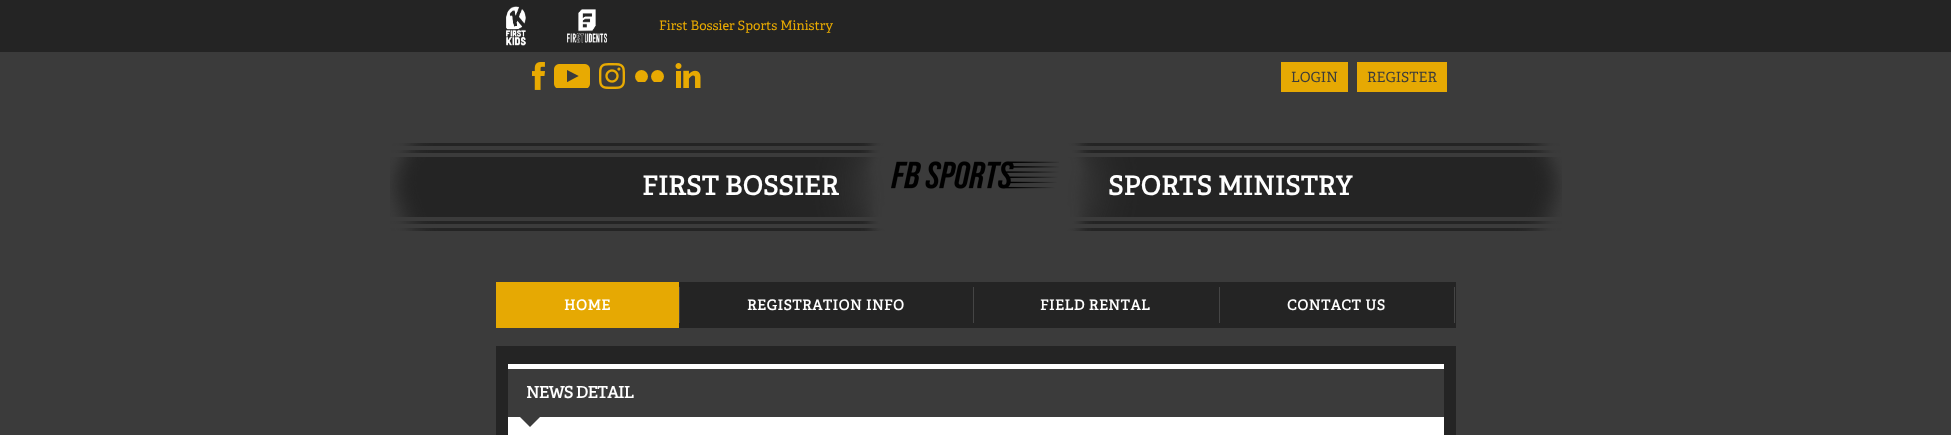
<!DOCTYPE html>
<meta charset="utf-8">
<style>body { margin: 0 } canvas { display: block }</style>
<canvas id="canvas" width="1951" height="435"></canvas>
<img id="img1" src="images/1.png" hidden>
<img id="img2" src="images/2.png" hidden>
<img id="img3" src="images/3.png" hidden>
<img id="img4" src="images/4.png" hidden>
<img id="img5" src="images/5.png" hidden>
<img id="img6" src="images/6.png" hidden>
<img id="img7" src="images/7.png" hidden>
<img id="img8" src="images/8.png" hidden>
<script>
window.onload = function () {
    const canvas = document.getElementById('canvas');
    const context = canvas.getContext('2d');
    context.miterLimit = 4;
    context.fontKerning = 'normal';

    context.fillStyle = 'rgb(59, 59, 59)';
    context.fillRect(0, 0, 1951, 435);
    context.fillStyle = 'rgb(36, 36, 36)';
    context.fillRect(0, 0, 1951, 52);
    context.drawImage(document.getElementById('img1'), 506, 6, 20, 40);
    context.drawImage(document.getElementById('img2'), 567, 9, 40, 34);
    context.drawImage(document.getElementById('img3'), 532, 62, 13, 28);
    context.drawImage(document.getElementById('img4'), 554, 64, 36, 24);
    context.drawImage(document.getElementById('img5'), 599, 63, 26, 26);
    context.save();
    context.beginPath();
    context.rect(635, 70, 29, 12);
    context.clip();
    context.fillStyle = 'rgb(232, 170, 2)';
    context.beginPath();
    context.arc(641.5, 76.5, 6.5, 0, 2 * Math.PI);
    context.fill();
    context.beginPath();
    context.arc(657.5, 76.5, 6.5, 0, 2 * Math.PI);
    context.fill();
    context.restore();
    context.drawImage(document.getElementById('img6'), 675, 63, 26, 25);
    context.fillStyle = 'rgb(230, 169, 3)';
    context.fillRect(1281, 62, 67, 30);
    context.fillRect(1357, 62, 90, 30);
    context.drawImage(document.getElementById('img7'), 390, 143, 1172, 88);
    context.drawImage(document.getElementById('img8'), 891, 161, 168, 28);
    context.fillStyle = 'rgb(36, 36, 36)';
    context.fillRect(679, 282, 777, 46);
    context.fillStyle = 'rgb(230, 169, 3)';
    context.fillRect(496, 282, 183, 46);
    context.fillStyle = 'rgb(69, 69, 69)';
    context.fillRect(679, 287, 1, 36);
    context.fillRect(973, 287, 1, 36);
    context.fillRect(1219, 287, 1, 36);
    context.fillRect(1454, 287, 1, 36);
    context.fillStyle = 'rgb(36, 36, 36)';
    context.fillRect(496, 346, 960, 89);
    context.fillStyle = 'rgb(59, 59, 59)';
    context.fillRect(508, 369, 936, 48);
    context.fillStyle = 'rgb(255, 255, 255)';
    context.fillRect(508, 364, 936, 5);
    context.fillRect(508, 417, 936, 18);
    context.fillStyle = 'rgb(59, 59, 59)';
    context.beginPath();
    context.moveTo(520, 417);
    context.lineTo(540, 417);
    context.lineTo(530, 427);
    context.closePath();
    context.fill();
    context.font = '13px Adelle';
    context.fillStyle = 'rgb(232, 170, 2)';
    context.fillText('First Bossier Sports Ministry', 659, 30);
    context.font = '14px Adelle';
    context.fillStyle = 'rgb(59, 59, 59)';
    context.fillText('LOGIN', 1291, 82);
    context.fillText('REGISTER', 1367, 82);
    context.letterSpacing = '0.25px';
    context.font = 'bold 26px Adelle';
    context.fillStyle = 'rgb(255, 255, 255)';
    context.fillText('FIRST BOSSIER', 642, 195);
    context.fillText('SPORTS MINISTRY', 1108, 195);
    context.letterSpacing = '0.6px';
    context.font = 'bold 14px Adelle';
    context.fillText('HOME', 564, 310);
    context.fillText('REGISTRATION INFO', 747, 310);
    context.fillText('FIELD RENTAL', 1040, 310);
    context.fillText('CONTACT US', 1287, 310);
    context.letterSpacing = '-0.5px';
    context.font = 'bold 16px Adelle';
    context.fillText('NEWS DETAIL', 526, 398);
};
</script>
